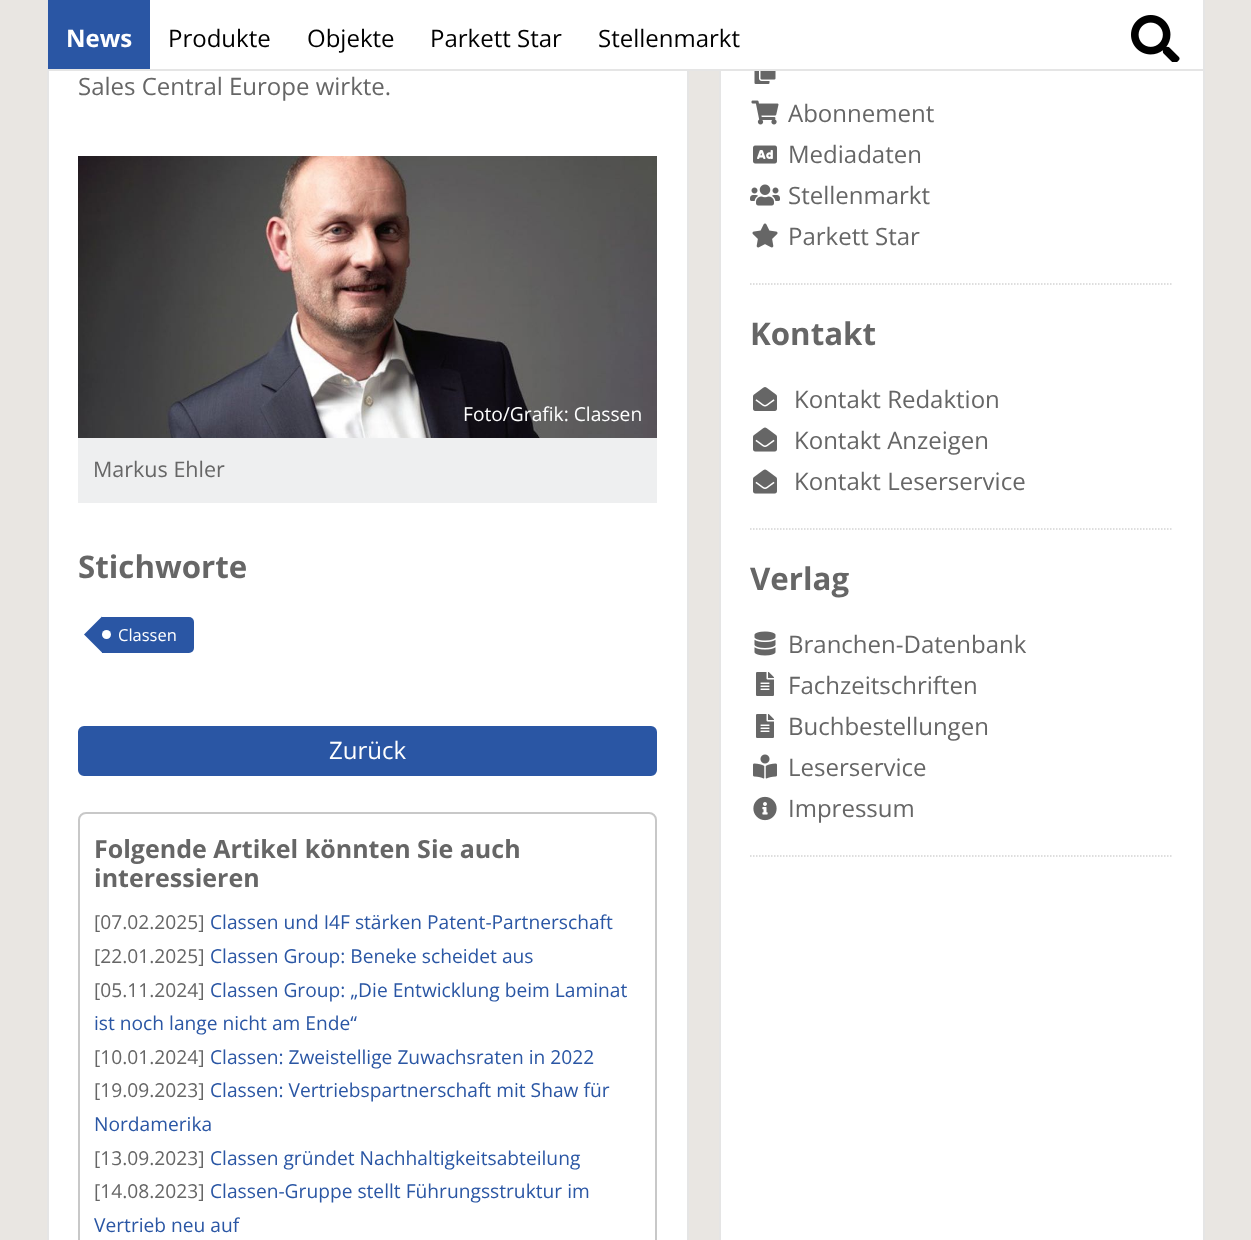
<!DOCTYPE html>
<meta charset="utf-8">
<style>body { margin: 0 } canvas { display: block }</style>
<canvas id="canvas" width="1251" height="1240"></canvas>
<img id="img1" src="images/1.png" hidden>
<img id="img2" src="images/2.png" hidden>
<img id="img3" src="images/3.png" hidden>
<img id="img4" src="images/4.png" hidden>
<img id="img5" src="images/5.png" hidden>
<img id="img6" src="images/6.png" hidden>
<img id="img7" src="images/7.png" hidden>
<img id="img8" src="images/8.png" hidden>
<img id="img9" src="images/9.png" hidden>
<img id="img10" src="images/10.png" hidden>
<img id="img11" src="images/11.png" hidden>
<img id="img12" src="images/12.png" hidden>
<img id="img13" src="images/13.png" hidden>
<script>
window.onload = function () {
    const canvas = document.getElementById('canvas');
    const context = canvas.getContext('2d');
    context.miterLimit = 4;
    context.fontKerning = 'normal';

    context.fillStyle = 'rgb(233, 230, 226)';
    context.fillRect(0, 0, 1251, 1240);
    context.fillStyle = 'rgb(255, 255, 255)';
    context.fillRect(49, 71, 638, 1169);
    context.strokeStyle = 'rgb(229, 229, 229)';
    context.lineWidth = 2;
    context.strokeRect(48, -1, 640, 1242);
    context.fillRect(721, 71, 482, 1169);
    context.strokeRect(720, -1, 484, 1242);
    context.fillStyle = 'rgb(229, 229, 229)';
    context.fillRect(47, 69, 1158, 2);
    context.fillStyle = 'rgb(255, 255, 255)';
    context.fillRect(150, 0, 1053, 69);
    context.fillStyle = 'rgb(42, 86, 164)';
    context.fillRect(48, 0, 102, 69);
    context.drawImage(document.getElementById('img1'), 1131, 15, 49, 47);
    context.drawImage(document.getElementById('img2'), 78, 156, 579, 282);
    context.fillStyle = 'rgb(238, 239, 240)';
    context.fillRect(78, 438, 579, 65);
    context.fillStyle = 'rgb(42, 86, 164)';
    context.beginPath();
    context.roundRect(102, 617, 92, 36, [0, 5, 5, 0]);
    context.fill();
    context.beginPath();
    context.moveTo(102, 616.5);
    context.lineTo(102, 652.5);
    context.lineTo(84, 634.5);
    context.closePath();
    context.fill();
    context.fillStyle = 'rgb(255, 255, 255)';
    context.beginPath();
    context.arc(106.5, 634.5, 4.5, 0, 2 * Math.PI);
    context.fill();
    context.fillStyle = 'rgb(42, 86, 164)';
    context.beginPath();
    context.roundRect(79, 727, 577, 48, 5);
    context.fill();
    context.strokeStyle = 'rgb(42, 86, 164)';
    context.stroke();
    context.beginPath();
    context.roundRect(79, 813, 577, 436, 7);
    context.strokeStyle = 'rgb(200, 200, 200)';
    context.stroke();
    context.drawImage(document.getElementById('img3'), 754, 71, 22, 13);
    context.drawImage(document.getElementById('img4'), 751, 100, 28, 25);
    context.drawImage(document.getElementById('img5'), 753, 145, 24, 19);
    context.drawImage(document.getElementById('img6'), 750, 184, 30, 22);
    context.drawImage(document.getElementById('img7'), 752, 223, 26, 25);
    context.beginPath();
    context.moveTo(750, 284);
    context.lineTo(1173, 284);
    context.strokeStyle = 'rgb(211, 211, 211)';
    context.lineWidth = 1.5;
    context.setLineDash([1.5, 1.5]);
    context.stroke();
    context.drawImage(document.getElementById('img8'), 753, 387, 24, 24);
    context.drawImage(document.getElementById('img9'), 753, 427, 24, 25);
    context.drawImage(document.getElementById('img9'), 753, 469, 24, 25);
    context.beginPath();
    context.moveTo(750, 529);
    context.lineTo(1173, 529);
    context.stroke();
    context.drawImage(document.getElementById('img10'), 754, 631, 22, 25);
    context.drawImage(document.getElementById('img11'), 756, 672, 18, 24);
    context.drawImage(document.getElementById('img11'), 756, 714, 18, 24);
    context.drawImage(document.getElementById('img12'), 753, 754, 24, 25);
    context.drawImage(document.getElementById('img13'), 753, 796, 24, 25);
    context.beginPath();
    context.moveTo(750, 856);
    context.lineTo(1173, 856);
    context.stroke();
    context.font = 'bold 24px Open Sans';
    context.fillStyle = 'rgb(255, 255, 255)';
    context.fillText('News', 66, 47);
    context.font = '24px Open Sans';
    context.fillStyle = 'rgb(0, 0, 0)';
    context.fillText('Produkte', 168, 47);
    context.fillText('Objekte', 307, 47);
    context.fillText('Parkett Star', 430, 47);
    context.fillText('Stellenmarkt', 598, 47);
    context.fillStyle = 'rgb(102, 102, 102)';
    context.fillText('Sales Central Europe wirkte.', 78, 95);
    context.font = '19.2px Open Sans';
    context.fillStyle = 'rgb(255, 255, 255)';
    context.fillText('Foto/Grafik: Classen', 463, 421);
    context.font = '21.5px Open Sans';
    context.fillStyle = 'rgb(102, 102, 102)';
    context.fillText('Markus Ehler', 93, 477);
    context.font = 'bold 31.25px Open Sans';
    context.fillText('Stichworte', 78, 578);
    context.font = '16.5px Open Sans';
    context.fillStyle = 'rgb(255, 255, 255)';
    context.fillText('Classen', 118, 641);
    context.font = '24px Open Sans';
    context.fillText('Zurück', 329, 759);
    context.font = 'bold 25px Open Sans';
    context.fillStyle = 'rgb(102, 102, 102)';
    context.fillText('Folgende Artikel könnten Sie auch', 94, 858);
    context.fillText('interessieren', 94, 887);
    context.font = '19.2px Open Sans';
    context.fillText('[07.02.2025]', 94, 929);
    context.fillStyle = 'rgb(42, 86, 164)';
    context.fillText('Classen und I4F stärken Patent-Partnerschaft', 210, 929);
    context.fillStyle = 'rgb(102, 102, 102)';
    context.fillText('[22.01.2025]', 94, 963);
    context.fillStyle = 'rgb(42, 86, 164)';
    context.fillText('Classen Group: Beneke scheidet aus', 210, 963);
    context.fillStyle = 'rgb(102, 102, 102)';
    context.fillText('[05.11.2024]', 94, 997);
    context.fillStyle = 'rgb(42, 86, 164)';
    context.fillText('Classen Group: „Die Entwicklung beim Laminat', 210, 997);
    context.fillText('ist noch lange nicht am Ende“', 94, 1030);
    context.fillStyle = 'rgb(102, 102, 102)';
    context.fillText('[10.01.2024]', 94, 1064);
    context.fillStyle = 'rgb(42, 86, 164)';
    context.fillText('Classen: Zweistellige Zuwachsraten in 2022', 210, 1064);
    context.fillStyle = 'rgb(102, 102, 102)';
    context.fillText('[19.09.2023]', 94, 1097);
    context.fillStyle = 'rgb(42, 86, 164)';
    context.fillText('Classen: Vertriebspartnerschaft mit Shaw für', 210, 1097);
    context.fillText('Nordamerika', 94, 1131);
    context.fillStyle = 'rgb(102, 102, 102)';
    context.fillText('[13.09.2023]', 94, 1165);
    context.fillStyle = 'rgb(42, 86, 164)';
    context.fillText('Classen gründet Nachhaltigkeitsabteilung', 210, 1165);
    context.fillStyle = 'rgb(102, 102, 102)';
    context.fillText('[14.08.2023]', 94, 1198);
    context.fillStyle = 'rgb(42, 86, 164)';
    context.fillText('Classen-Gruppe stellt Führungsstruktur im', 210, 1198);
    context.fillText('Vertrieb neu auf', 94, 1232);
    context.font = '24px Open Sans';
    context.fillStyle = 'rgb(102, 102, 102)';
    context.fillText('Abonnement', 788, 122);
    context.fillText('Mediadaten', 788, 163);
    context.fillText('Stellenmarkt', 788, 204);
    context.fillText('Parkett Star', 788, 245);
    context.font = 'bold 31.25px Open Sans';
    context.fillText('Kontakt', 750, 345);
    context.font = '24px Open Sans';
    context.fillText('Kontakt Redaktion', 794, 408);
    context.fillText('Kontakt Anzeigen', 794, 449);
    context.fillText('Kontakt Leserservice', 794, 490);
    context.font = 'bold 31.25px Open Sans';
    context.fillText('Verlag', 750, 590);
    context.font = '24px Open Sans';
    context.fillText('Branchen-Datenbank', 788, 653);
    context.fillText('Fachzeitschriften', 788, 694);
    context.fillText('Buchbestellungen', 788, 735);
    context.fillText('Leserservice', 788, 776);
    context.fillText('Impressum', 788, 817);
};
</script>
